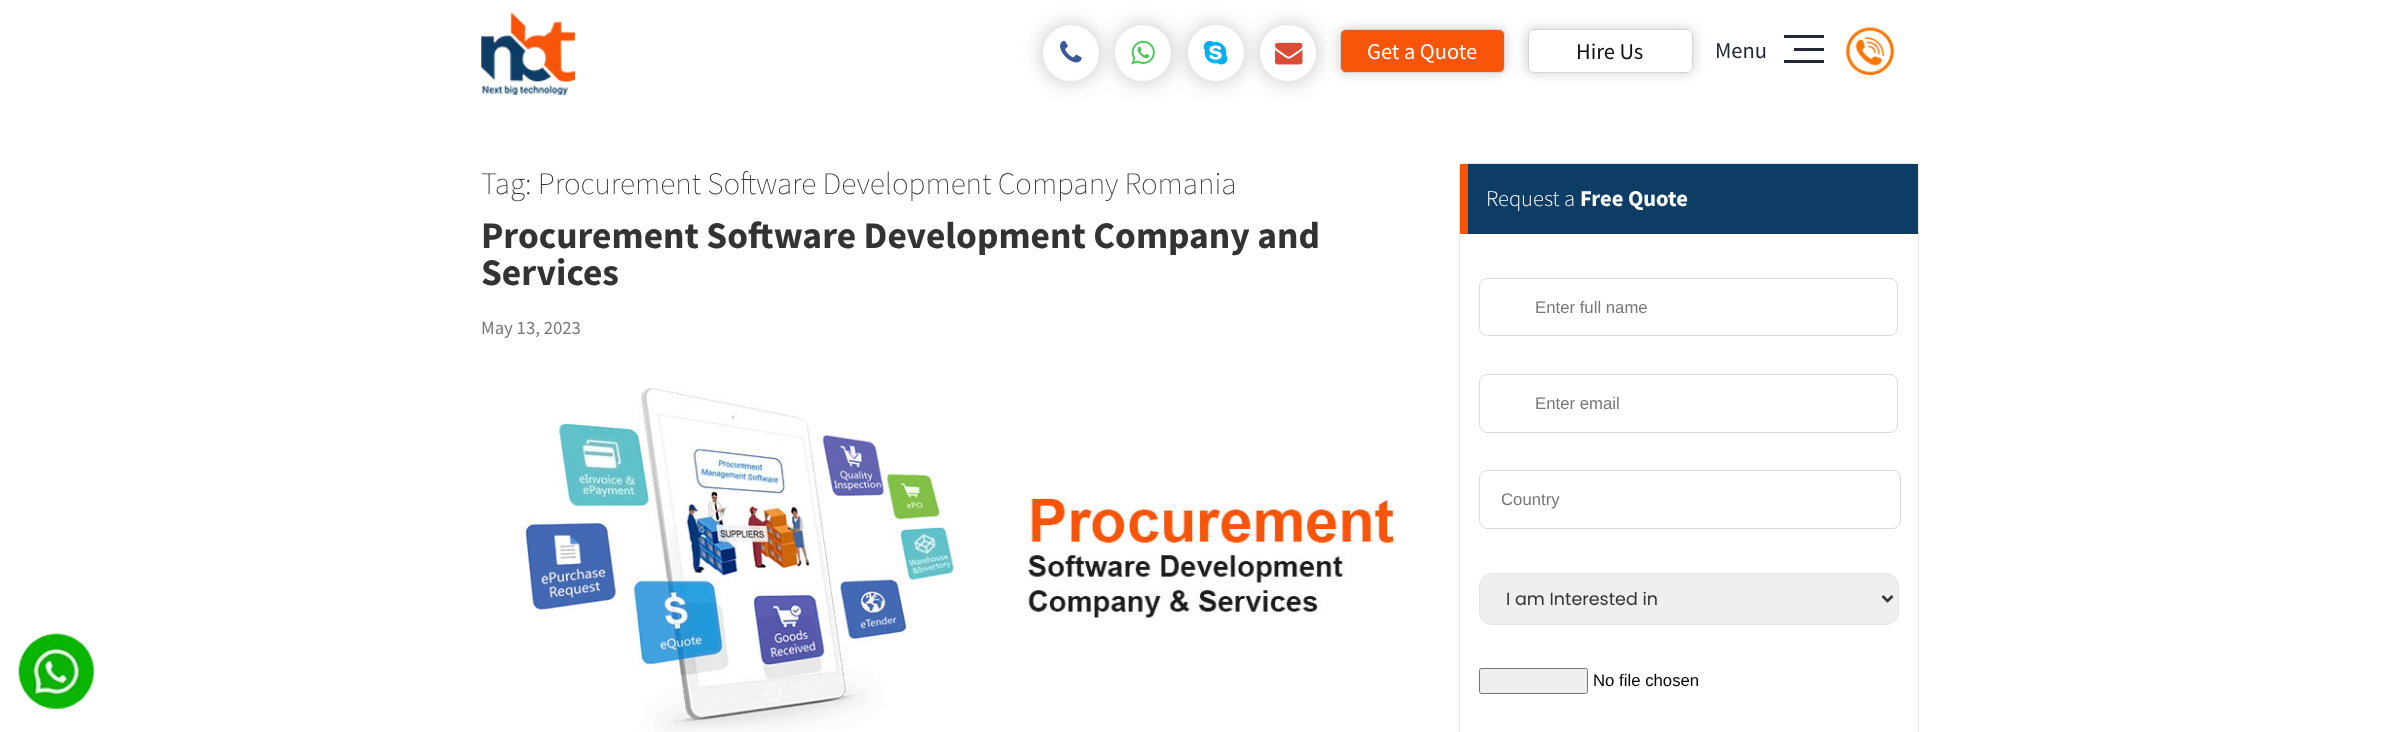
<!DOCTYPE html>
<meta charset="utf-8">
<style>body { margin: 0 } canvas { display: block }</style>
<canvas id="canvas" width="2400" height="732"></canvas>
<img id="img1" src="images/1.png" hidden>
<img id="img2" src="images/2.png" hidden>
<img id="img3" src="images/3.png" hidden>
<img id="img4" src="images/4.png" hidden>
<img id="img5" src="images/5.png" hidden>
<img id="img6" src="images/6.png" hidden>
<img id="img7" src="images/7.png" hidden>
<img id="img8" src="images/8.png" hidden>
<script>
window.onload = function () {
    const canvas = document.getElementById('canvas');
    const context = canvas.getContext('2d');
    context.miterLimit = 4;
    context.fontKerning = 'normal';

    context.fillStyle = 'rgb(255, 255, 255)';
    context.fillRect(0, 0, 2400, 732);
    context.drawImage(document.getElementById('img1'), 481, 12, 94, 83);
    context.save();
    context.beginPath();
    context.moveTo(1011, 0);
    context.lineTo(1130, 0);
    context.lineTo(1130, 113);
    context.lineTo(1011, 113);
    context.closePath();
    context.moveTo(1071, 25);
    context.bezierCurveTo(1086.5, 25, 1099, 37.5, 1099, 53);
    context.bezierCurveTo(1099, 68.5, 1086.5, 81, 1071, 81);
    context.bezierCurveTo(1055.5, 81, 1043, 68.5, 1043, 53);
    context.bezierCurveTo(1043, 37.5, 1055.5, 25, 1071, 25);
    context.closePath();
    context.clip('evenodd');
    context.fillStyle = 'rgb(204, 204, 204)';
    context.filter = 'blur(9.5px)';
    context.beginPath();
    context.roundRect(1041, 24, 59, 59, 29.5);
    context.fill();
    context.filter = 'none';
    context.restore();
    context.drawImage(document.getElementById('img2'), 1060, 40, 22, 23);
    context.save();
    context.beginPath();
    context.moveTo(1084, 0);
    context.lineTo(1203, 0);
    context.lineTo(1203, 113);
    context.lineTo(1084, 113);
    context.closePath();
    context.moveTo(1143, 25);
    context.bezierCurveTo(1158.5, 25, 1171, 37.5, 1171, 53);
    context.bezierCurveTo(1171, 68.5, 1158.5, 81, 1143, 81);
    context.bezierCurveTo(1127.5, 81, 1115, 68.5, 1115, 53);
    context.bezierCurveTo(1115, 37.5, 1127.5, 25, 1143, 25);
    context.closePath();
    context.clip('evenodd');
    context.fillStyle = 'rgb(204, 204, 204)';
    context.filter = 'blur(9.5px)';
    context.beginPath();
    context.roundRect(1114, 24, 59, 59, 29.5);
    context.fill();
    context.filter = 'none';
    context.restore();
    context.drawImage(document.getElementById('img3'), 1131, 40, 24, 25);
    context.save();
    context.beginPath();
    context.moveTo(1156, 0);
    context.lineTo(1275, 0);
    context.lineTo(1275, 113);
    context.lineTo(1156, 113);
    context.closePath();
    context.moveTo(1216, 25);
    context.bezierCurveTo(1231.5, 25, 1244, 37.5, 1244, 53);
    context.bezierCurveTo(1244, 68.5, 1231.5, 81, 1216, 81);
    context.bezierCurveTo(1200.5, 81, 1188, 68.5, 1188, 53);
    context.bezierCurveTo(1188, 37.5, 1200.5, 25, 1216, 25);
    context.closePath();
    context.clip('evenodd');
    context.fillStyle = 'rgb(204, 204, 204)';
    context.filter = 'blur(9.5px)';
    context.beginPath();
    context.roundRect(1186, 24, 59, 59, 29.5);
    context.fill();
    context.filter = 'none';
    context.restore();
    context.drawImage(document.getElementById('img4'), 1203, 40, 25, 25);
    context.save();
    context.beginPath();
    context.moveTo(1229, 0);
    context.lineTo(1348, 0);
    context.lineTo(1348, 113);
    context.lineTo(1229, 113);
    context.closePath();
    context.moveTo(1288, 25);
    context.bezierCurveTo(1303.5, 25, 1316, 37.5, 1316, 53);
    context.bezierCurveTo(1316, 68.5, 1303.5, 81, 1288, 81);
    context.bezierCurveTo(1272.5, 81, 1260, 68.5, 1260, 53);
    context.bezierCurveTo(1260, 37.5, 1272.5, 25, 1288, 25);
    context.closePath();
    context.clip('evenodd');
    context.fillStyle = 'rgb(204, 204, 204)';
    context.filter = 'blur(9.5px)';
    context.beginPath();
    context.roundRect(1259, 24, 59, 59, 29.5);
    context.fill();
    context.filter = 'none';
    context.restore();
    context.drawImage(document.getElementById('img5'), 1275, 42, 28, 23);
    context.fillStyle = 'rgb(213, 213, 213)';
    context.filter = 'blur(6px)';
    context.beginPath();
    context.roundRect(1339, 28, 167, 46, 8);
    context.fill();
    context.filter = 'none';
    context.fillStyle = 'rgb(248, 85, 8)';
    context.beginPath();
    context.roundRect(1340.5, 29.5, 164, 43, 5.5);
    context.fill();
    context.strokeStyle = 'rgb(213, 213, 213)';
    context.stroke();
    context.save();
    context.beginPath();
    context.moveTo(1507, 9);
    context.lineTo(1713, 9);
    context.lineTo(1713, 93);
    context.lineTo(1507, 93);
    context.closePath();
    context.moveTo(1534, 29);
    context.lineTo(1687, 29);
    context.bezierCurveTo(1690.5, 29, 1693, 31.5, 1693, 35);
    context.lineTo(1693, 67);
    context.bezierCurveTo(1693, 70.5, 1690.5, 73, 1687, 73);
    context.lineTo(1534, 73);
    context.bezierCurveTo(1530.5, 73, 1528, 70.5, 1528, 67);
    context.lineTo(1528, 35);
    context.bezierCurveTo(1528, 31.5, 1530.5, 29, 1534, 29);
    context.closePath();
    context.clip('evenodd');
    context.fillStyle = 'rgb(213, 213, 213)';
    context.filter = 'blur(6px)';
    context.beginPath();
    context.roundRect(1526, 28, 168, 46, 8);
    context.fill();
    context.filter = 'none';
    context.restore();
    context.beginPath();
    context.roundRect(1528.5, 29.5, 164, 43, 5.5);
    context.stroke();
    context.fillStyle = 'rgb(33, 39, 53)';
    context.fillRect(1784, 35, 40, 3);
    context.fillRect(1794, 48, 30, 3);
    context.fillRect(1784, 60, 40, 3);
    context.drawImage(document.getElementById('img6'), 1846, 27, 48, 48);
    context.drawImage(document.getElementById('img7'), 18, 633, 76, 76);
    context.drawImage(document.getElementById('img8'), 520, 388, 881, 344);
    context.beginPath();
    context.roundRect(1459.5, 163.5, 459, 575, 5.5);
    context.strokeStyle = 'rgb(228, 228, 228)';
    context.stroke();
    context.fillStyle = 'rgb(13, 61, 101)';
    context.fillRect(1468, 164, 450, 70);
    context.fillStyle = 'rgb(248, 85, 8)';
    context.fillRect(1460, 164, 8, 70);
    context.beginPath();
    context.roundRect(1479.5, 278.5, 418, 57, 7.5);
    context.strokeStyle = 'rgb(219, 219, 219)';
    context.stroke();
    context.beginPath();
    context.roundRect(1479.5, 374.5, 418, 58, 7.5);
    context.stroke();
    context.beginPath();
    context.roundRect(1479.5, 470.5, 421, 58, 7.5);
    context.stroke();
    context.fillStyle = 'rgb(239, 239, 239)';
    context.beginPath();
    context.roundRect(1479.5, 573.5, 419, 51, 12.5);
    context.fill();
    context.strokeStyle = 'rgb(228, 228, 228)';
    context.stroke();
    context.beginPath();
    context.moveTo(1882.5, 596);
    context.lineTo(1887.5, 601);
    context.lineTo(1892.5, 596);
    context.strokeStyle = 'rgb(51, 51, 51)';
    context.lineWidth = 2.5;
    context.stroke();
    context.beginPath();
    context.roundRect(1479.5, 668.5, 108, 25, 2);
    context.fill();
    context.strokeStyle = 'rgb(118, 118, 118)';
    context.lineWidth = 1;
    context.stroke();
    context.font = '22.5px Source Sans Pro';
    context.fillStyle = 'rgb(255, 255, 255)';
    context.fillText('Get a Quote', 1367, 59);
    context.fillStyle = 'rgb(14, 14, 14)';
    context.fillText('Hire Us', 1576, 59);
    context.fillStyle = 'rgb(33, 39, 53)';
    context.fillText('Menu', 1715, 58);
    context.font = '200 31.25px Source Sans Pro';
    context.fillStyle = 'rgb(51, 51, 51)';
    context.fillText('Tag: Procurement Software Development Company Romania', 481, 194);
    context.font = 'bold 37.5px Source Sans Pro';
    context.fillText('Procurement Software Development Company and', 481, 248);
    context.fillText('Services', 481, 285);
    context.font = '18.75px Source Sans Pro';
    context.fillStyle = 'rgb(119, 119, 119)';
    context.fillText('May 13, 2023', 481, 334);
    context.font = '300 22.5px Source Sans Pro';
    context.fillStyle = 'rgb(255, 255, 255)';
    context.fillText('Request a', 1486, 206);
    context.font = 'bold 22.5px Source Sans Pro';
    context.fillText('Free Quote', 1580, 206);
    context.font = '16.75px Liberation Sans';
    context.fillStyle = 'rgb(119, 119, 119)';
    context.fillText('Enter full name', 1535, 313);
    context.fillText('Enter email', 1535, 409);
    context.fillText('Country', 1501, 505);
    context.font = '17.5px Poppins';
    context.fillStyle = 'rgb(51, 51, 51)';
    context.fillText('I am Interested in', 1506, 605);
    context.font = '16.75px Liberation Sans';
    context.fillStyle = 'rgb(0, 0, 0)';
    context.fillText('No file chosen', 1593, 686);
};
</script>
